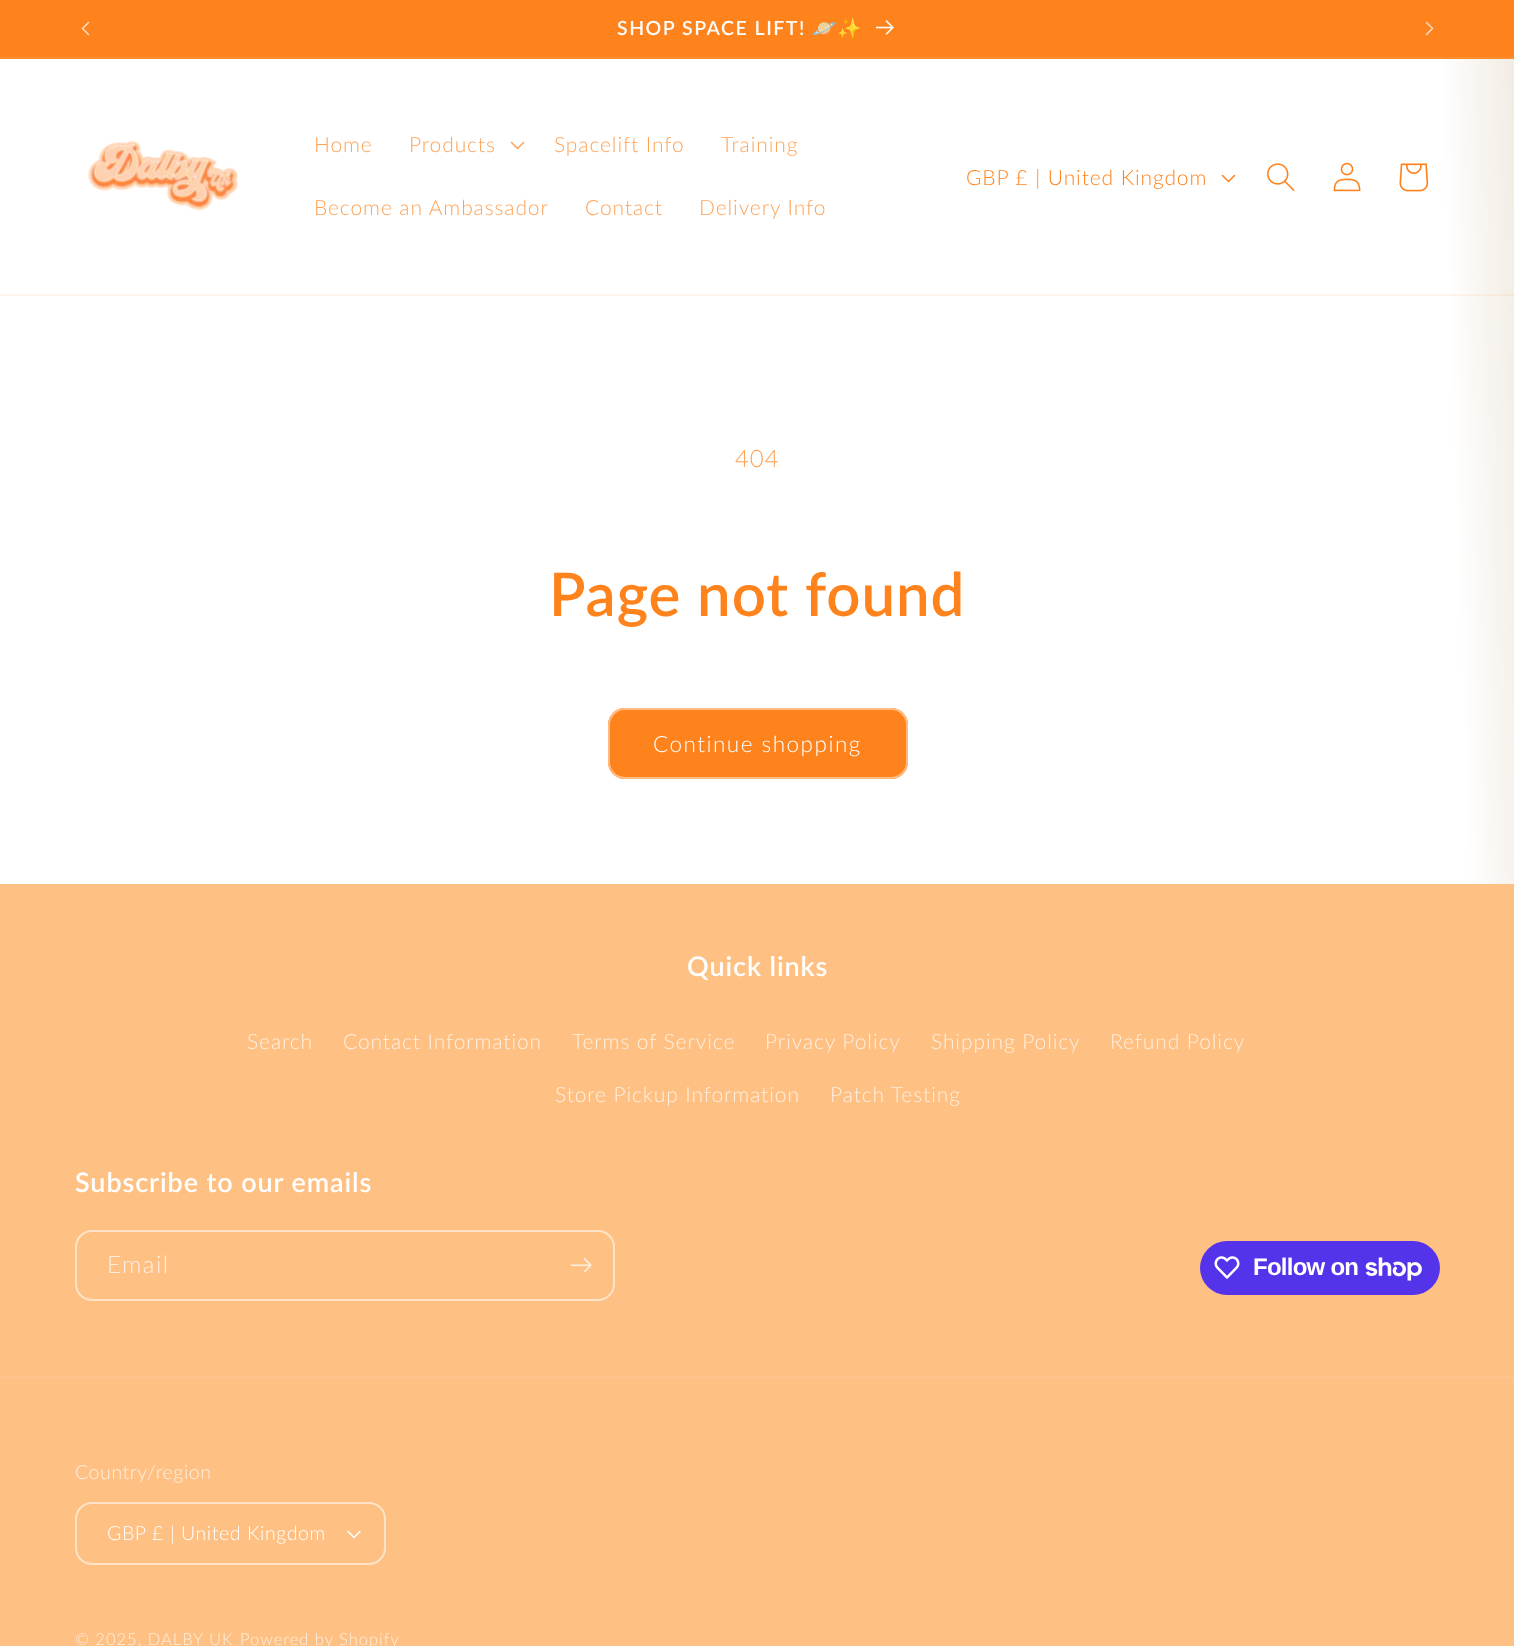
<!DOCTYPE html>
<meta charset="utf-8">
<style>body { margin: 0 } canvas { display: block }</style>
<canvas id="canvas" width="1514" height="1646"></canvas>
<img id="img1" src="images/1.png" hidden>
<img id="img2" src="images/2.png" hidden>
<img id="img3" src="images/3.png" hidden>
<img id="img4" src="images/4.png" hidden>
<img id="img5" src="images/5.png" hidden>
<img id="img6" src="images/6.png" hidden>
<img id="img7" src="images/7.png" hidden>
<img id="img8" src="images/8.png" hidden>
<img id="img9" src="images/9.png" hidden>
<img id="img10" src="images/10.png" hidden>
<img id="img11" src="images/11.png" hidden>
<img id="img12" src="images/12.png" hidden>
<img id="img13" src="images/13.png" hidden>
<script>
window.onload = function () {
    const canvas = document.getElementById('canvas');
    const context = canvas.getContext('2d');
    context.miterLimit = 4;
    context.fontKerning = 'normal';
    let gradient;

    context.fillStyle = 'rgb(255, 255, 255)';
    context.fillRect(0, 0, 1514, 1646);
    gradient = context.createLinearGradient(-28, 851, 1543, 796);
    gradient.addColorStop(0, 'rgb(255, 255, 255)');
    gradient.addColorStop(0.95, 'rgb(255, 255, 255)');
    gradient.addColorStop(1, 'rgb(241, 235, 226)');
    context.fillStyle = gradient;
    context.fillRect(1445, 59, 69, 825);
    gradient = context.createLinearGradient(-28, 851, 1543, 796);
    gradient.addColorStop(0, 'rgb(255, 245, 237)');
    gradient.addColorStop(0.95, 'rgb(255, 245, 237)');
    gradient.addColorStop(1, 'rgb(242, 227, 210)');
    context.fillStyle = gradient;
    context.fillRect(0, 294, 1514, 2);
    context.fillStyle = 'rgb(255, 131, 29)';
    context.fillRect(0, 0, 1514, 57);
    context.fillStyle = 'rgb(255, 141, 46)';
    context.fillRect(0, 57, 1514, 2);
    context.drawImage(document.getElementById('img1'), 81, 21, 9, 15);
    context.drawImage(document.getElementById('img2'), 876, 20, 18, 15);
    context.drawImage(document.getElementById('img3'), 1425, 21, 9, 15);
    context.drawImage(document.getElementById('img4'), 88, 140, 151, 71);
    context.drawImage(document.getElementById('img5'), 510, 141, 15, 9);
    context.drawImage(document.getElementById('img6'), 1221, 174, 15, 9);
    context.drawImage(document.getElementById('img7'), 1267, 163, 28, 28);
    context.drawImage(document.getElementById('img8'), 1333, 162, 28, 30);
    context.drawImage(document.getElementById('img9'), 1399, 163, 30, 29);
    context.fillStyle = 'rgb(255, 131, 29)';
    context.beginPath();
    context.roundRect(608, 708, 300, 71, 17);
    context.fill();
    context.beginPath();
    context.roundRect(609, 709, 298, 69, 16);
    context.strokeStyle = 'rgb(255, 131, 29)';
    context.lineWidth = 2;
    context.stroke();
    context.beginPath();
    context.roundRect(609, 709, 298, 69, 16);
    context.strokeStyle = 'rgba(255, 255, 255, 0.45)';
    context.stroke();
    context.fillStyle = 'rgb(255, 192, 131)';
    context.fillRect(0, 884, 1514, 762);
    context.beginPath();
    context.roundRect(76, 1231, 538, 69, 16);
    context.strokeStyle = 'rgb(255, 227, 199)';
    context.stroke();
    context.drawImage(document.getElementById('img10'), 570, 1258, 22, 15);
    context.fillStyle = 'rgb(84, 51, 235)';
    context.beginPath();
    context.roundRect(1200, 1241, 240, 54, 27);
    context.fill();
    context.drawImage(document.getElementById('img11'), 1214, 1256, 26, 23);
    context.drawImage(document.getElementById('img12'), 1365, 1257, 57, 24);
    context.fillStyle = 'rgb(255, 197, 141)';
    context.fillRect(0, 1376, 1514, 2);
    context.drawImage(document.getElementById('img13'), 347, 1530, 14, 9);
    context.beginPath();
    context.roundRect(76, 1503, 309, 61, 16);
    context.stroke();
    context.letterSpacing = '1.5px';
    context.font = '600 19.5px Lato';
    context.fillStyle = 'rgb(253, 251, 247)';
    context.fillText('SHOP SPACE LIFT!', 617, 35);
    context.font = 'bold 19.5px Noto Color Emoji';
    context.fillText('🪐✨', 812, 35);
    context.letterSpacing = '0.9px';
    context.font = '300 21px Lato';
    context.fillStyle = 'rgb(255, 162, 86)';
    context.fillText('Home', 314, 152);
    context.fillText('Products', 409, 152);
    context.fillText('Spacelift Info', 554, 152);
    context.fillText('Training', 721, 152);
    context.fillText('Become an Ambassador', 314, 215);
    context.fillText('Contact', 585, 215);
    context.fillText('Delivery Info', 699, 215);
    context.fillStyle = 'rgb(255, 131, 29)';
    context.fillText('GBP £ | United Kingdom', 966, 185);
    context.font = '300 24px Lato';
    context.fillStyle = 'rgb(255, 162, 86)';
    context.fillText('404', 735, 467);
    context.font = '600 60px Lato';
    context.fillStyle = 'rgb(255, 131, 29)';
    context.fillText('Page not found', 549, 616);
    context.letterSpacing = '1.5px';
    context.font = '300 22.5px Lato';
    context.fillStyle = 'rgb(255, 255, 255)';
    context.fillText('Continue shopping', 653, 752);
    context.letterSpacing = '0.9px';
    context.font = '600 27px Lato';
    context.fillText('Quick links', 687, 976);
    context.font = '300 21px Lato';
    context.fillStyle = 'rgb(255, 239, 224)';
    context.fillText('Search', 247, 1049);
    context.fillText('Contact Information', 343, 1049);
    context.fillText('Terms of Service', 572, 1049);
    context.fillText('Privacy Policy', 765, 1049);
    context.fillText('Shipping Policy', 931, 1049);
    context.fillText('Refund Policy', 1110, 1049);
    context.fillText('Store Pickup Information', 555, 1102);
    context.fillText('Patch Testing', 830, 1102);
    context.font = '600 27px Lato';
    context.fillStyle = 'rgb(255, 255, 255)';
    context.fillText('Subscribe to our emails', 75, 1192);
    context.letterSpacing = '1.5px';
    context.font = '300 24px Lato';
    context.fillStyle = 'rgb(255, 239, 224)';
    context.fillText('Email', 107, 1273);
    context.letterSpacing = '-0.75px';
    context.font = 'bold 24px Liberation Sans';
    context.fillStyle = 'rgb(255, 255, 255)';
    context.fillText('Follow on', 1253, 1275);
    context.letterSpacing = '0.6px';
    context.font = '300 19.5px Lato';
    context.fillStyle = 'rgb(255, 239, 224)';
    context.fillText('Country/region', 75, 1479);
    context.fillStyle = 'rgb(255, 255, 255)';
    context.fillText('GBP £ | United Kingdom', 107, 1540);
    context.letterSpacing = '1px';
    context.font = '300 16.5px Lato';
    context.fillStyle = 'rgb(255, 239, 224)';
    context.fillText('© 2025, DALBY UK', 75, 1645);
    context.fillText('Powered by Shopify', 240, 1645);
};
</script>
